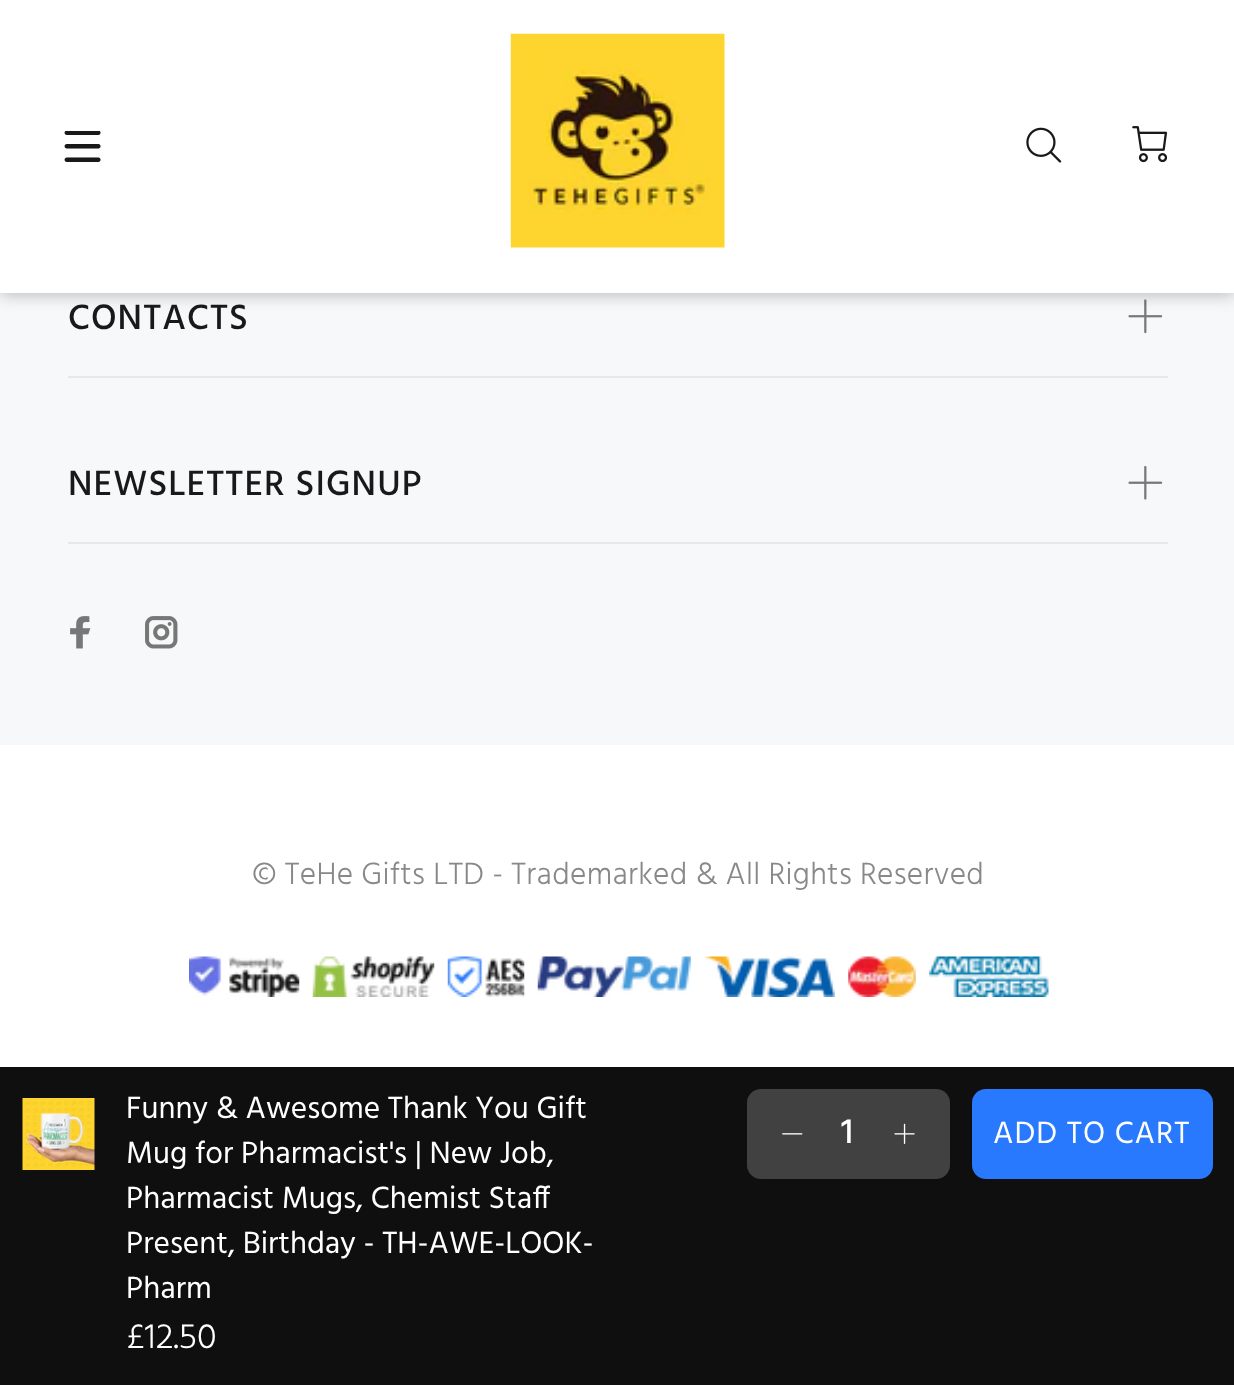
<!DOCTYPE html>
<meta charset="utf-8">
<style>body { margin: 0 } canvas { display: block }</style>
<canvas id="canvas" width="1234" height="1385"></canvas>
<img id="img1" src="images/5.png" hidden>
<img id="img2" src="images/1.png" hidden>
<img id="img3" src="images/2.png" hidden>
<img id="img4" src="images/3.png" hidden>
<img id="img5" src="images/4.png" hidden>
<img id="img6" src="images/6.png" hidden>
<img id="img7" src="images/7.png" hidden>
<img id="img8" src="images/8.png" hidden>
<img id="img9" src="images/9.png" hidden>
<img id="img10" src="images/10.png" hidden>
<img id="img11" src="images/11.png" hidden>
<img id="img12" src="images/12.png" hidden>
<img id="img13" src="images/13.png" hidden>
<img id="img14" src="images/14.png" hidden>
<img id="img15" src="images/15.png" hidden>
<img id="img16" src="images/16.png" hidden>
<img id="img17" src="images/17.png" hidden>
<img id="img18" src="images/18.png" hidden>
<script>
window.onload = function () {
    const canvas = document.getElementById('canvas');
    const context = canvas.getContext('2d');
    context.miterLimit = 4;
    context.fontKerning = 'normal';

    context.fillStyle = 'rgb(247, 248, 250)';
    context.fillRect(0, 0, 1234, 1385);
    context.drawImage(document.getElementById('img1'), 1128, 299, 35, 35);
    context.fillStyle = 'rgba(0, 0, 0, 0.3)';
    context.filter = 'blur(9px)';
    context.beginPath();
    context.rect(0, 0, 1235, 293);
    context.fill();
    context.filter = 'none';
    context.fillStyle = 'rgb(255, 255, 255)';
    context.fillRect(0, 0, 1234, 293);
    context.drawImage(document.getElementById('img2'), 64, 131, 37, 31);
    context.drawImage(document.getElementById('img3'), 510, 33, 215, 215);
    context.drawImage(document.getElementById('img4'), 1026, 127, 36, 36);
    context.drawImage(document.getElementById('img5'), 1132, 126, 36, 37);
    context.fillStyle = 'rgb(233, 231, 231)';
    context.fillRect(68, 376, 1100, 2);
    context.fillRect(68, 542, 1100, 2);
    context.drawImage(document.getElementById('img6'), 1128, 465, 35, 35);
    context.drawImage(document.getElementById('img7'), 70, 616, 21, 33);
    context.drawImage(document.getElementById('img8'), 145, 616, 33, 33);
    context.fillStyle = 'rgb(255, 255, 255)';
    context.fillRect(0, 745, 1234, 322);
    context.drawImage(document.getElementById('img9'), 189, 956, 111, 41);
    context.drawImage(document.getElementById('img10'), 312, 956, 123, 41);
    context.drawImage(document.getElementById('img11'), 447, 956, 78, 41);
    context.drawImage(document.getElementById('img12'), 537, 956, 154, 41);
    context.drawImage(document.getElementById('img13'), 704, 956, 131, 41);
    context.drawImage(document.getElementById('img14'), 848, 956, 68, 41);
    context.drawImage(document.getElementById('img15'), 929, 956, 120, 41);
    context.fillStyle = 'rgb(15, 15, 15)';
    context.fillRect(0, 1067, 1234, 318);
    context.drawImage(document.getElementById('img16'), 22, 1098, 73, 72);
    context.fillStyle = 'rgb(65, 65, 65)';
    context.beginPath();
    context.roundRect(747, 1089, 203, 90, 14);
    context.fill();
    context.drawImage(document.getElementById('img17'), 782, 1133, 21, 2);
    context.drawImage(document.getElementById('img18'), 894, 1123, 21, 21);
    context.fillStyle = 'rgb(40, 121, 254)';
    context.beginPath();
    context.roundRect(972, 1089, 241, 90, 14);
    context.fill();
    context.letterSpacing = '1.1px';
    context.font = '500 36px Hind';
    context.fillStyle = 'rgb(25, 25, 25)';
    context.fillText('CONTACTS', 68, 329);
    context.fillText('NEWSLETTER SIGNUP', 68, 495);
    context.letterSpacing = '0.32px';
    context.font = '300 31.5px Hind';
    context.fillStyle = 'rgb(136, 136, 136)';
    context.fillText('© TeHe Gifts LTD - Trademarked & All Rights Reserved', 252, 884);
    context.letterSpacing = '0px';
    context.font = '31.5px Hind';
    context.fillStyle = 'rgb(255, 255, 255)';
    context.fillText('Funny & Awesome Thank You Gift', 126, 1118);
    context.fillText('Mug for Pharmacist\'s | New Job,', 126, 1163);
    context.fillText('Pharmacist Mugs, Chemist Staff', 126, 1208);
    context.fillText('Present, Birthday - TH-AWE-LOOK-', 126, 1253);
    context.fillText('Pharm', 126, 1298);
    context.font = '300 36px Hind';
    context.fillText('£12.50', 126, 1348);
    context.font = '500 36px Hind';
    context.fillText('1', 841, 1143);
    context.letterSpacing = '1px';
    context.font = '31.5px Hind';
    context.fillText('ADD TO CART', 993, 1143);
};
</script>
